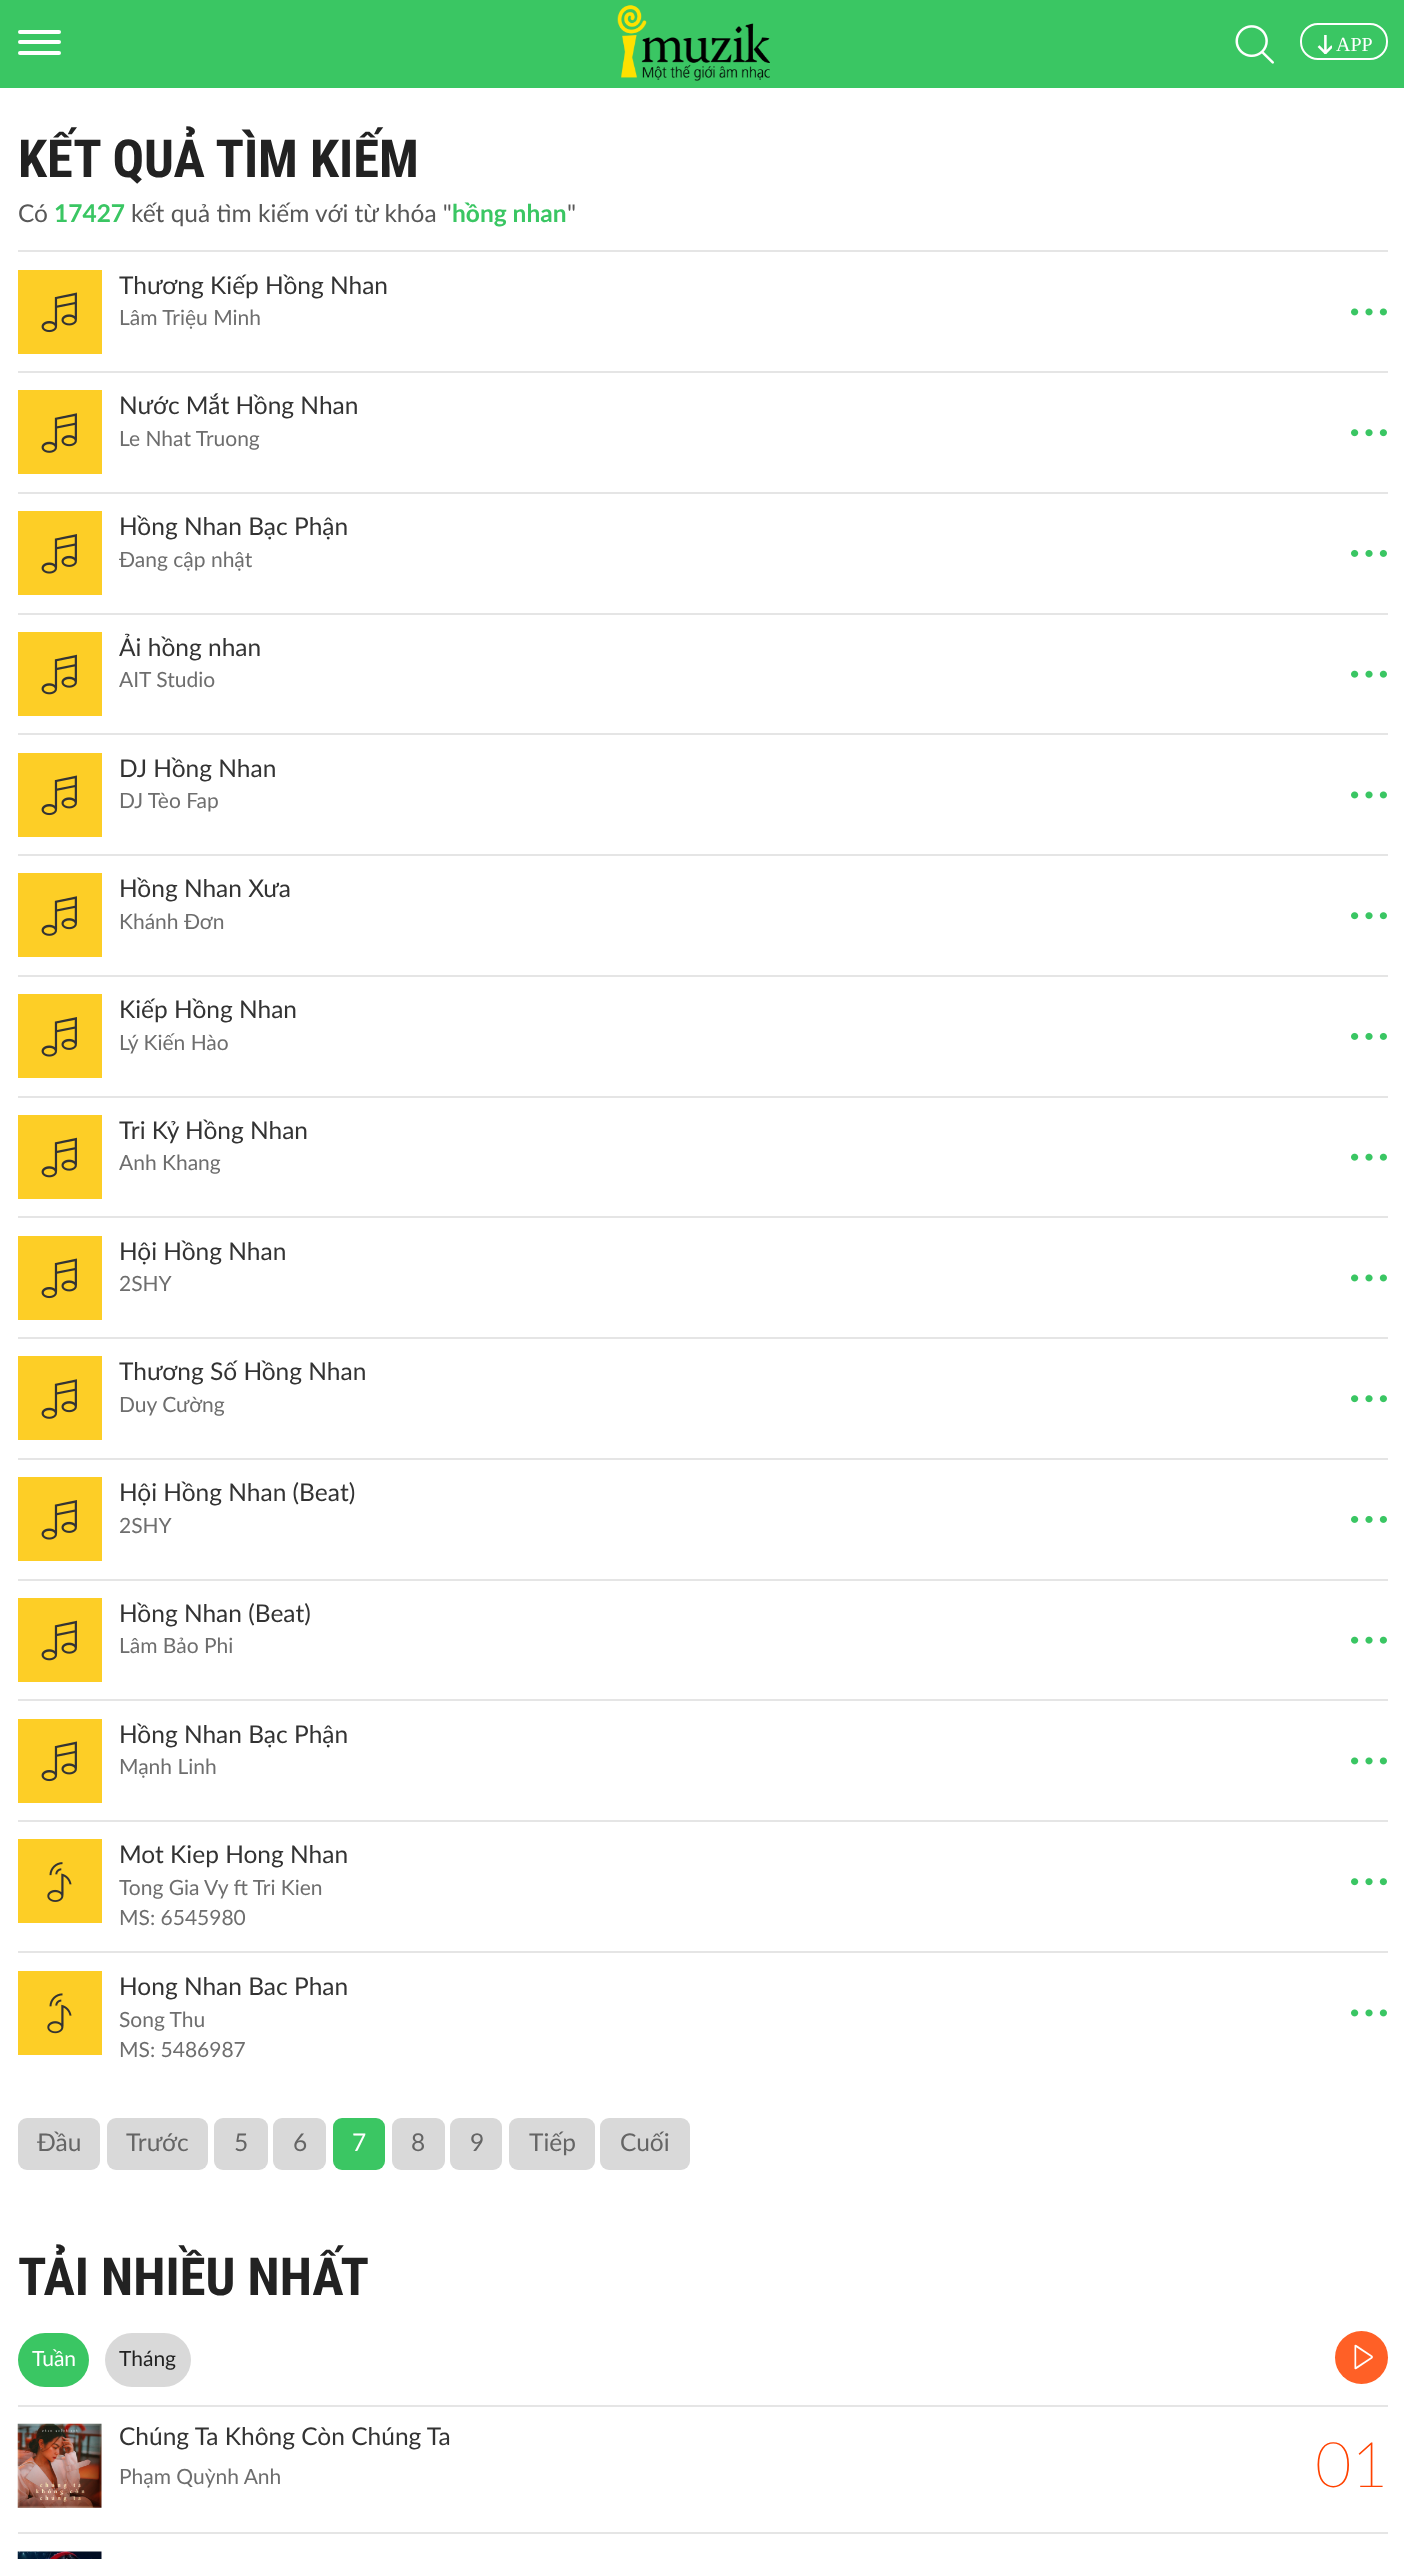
<!DOCTYPE html>
<meta charset="utf-8">
<style>body { margin: 0 } canvas { display: block }</style>
<canvas id="canvas" width="1404" height="2559"></canvas>
<img id="img1" src="images/1.png" hidden>
<img id="img2" src="images/2.png" hidden>
<img id="img3" src="images/3.png" hidden>
<img id="img4" src="images/4.png" hidden>
<img id="img5" src="images/5.png" hidden>
<img id="img6" src="images/6.png" hidden>
<img id="img7" src="images/7.png" hidden>
<img id="img8" src="images/8.png" hidden>
<img id="img9" src="images/9.png" hidden>
<img id="img10" src="images/10.png" hidden>
<img id="img11" src="images/11.png" hidden>
<img id="img12" src="images/12.png" hidden>
<img id="img13" src="images/13.png" hidden>
<img id="img14" src="images/14.png" hidden>
<img id="img15" src="images/15.png" hidden>
<img id="img16" src="images/16.png" hidden>
<script>
window.onload = function () {
    const canvas = document.getElementById('canvas');
    const context = canvas.getContext('2d');
    context.miterLimit = 4;
    context.fontKerning = 'normal';

    context.fillStyle = 'rgb(255, 255, 255)';
    context.fillRect(0, 0, 1404, 2559);
    context.fillStyle = 'rgb(58, 198, 99)';
    context.fillRect(0, 0, 1404, 88);
    context.fillStyle = 'rgb(255, 255, 255)';
    context.beginPath();
    context.roundRect(18, 30, 43, 4, 2);
    context.fill();
    context.beginPath();
    context.roundRect(18, 40, 43, 4, 2);
    context.fill();
    context.beginPath();
    context.roundRect(18, 51, 43, 4, 2);
    context.fill();
    context.drawImage(document.getElementById('img1'), 617, 5, 153, 76);
    context.drawImage(document.getElementById('img2'), 1235, 25, 39, 39);
    context.beginPath();
    context.roundRect(1301, 24, 86, 35, 17);
    context.strokeStyle = 'rgb(255, 255, 255)';
    context.lineWidth = 2;
    context.stroke();
    context.drawImage(document.getElementById('img3'), 1317, 35, 15, 19);
    context.fillStyle = 'rgb(229, 229, 229)';
    context.fillRect(18, 250, 1370, 2);
    context.fillStyle = 'rgb(253, 206, 38)';
    context.fillRect(18, 270, 84, 84);
    context.drawImage(document.getElementById('img4'), 41, 292, 36, 41);
    context.drawImage(document.getElementById('img5'), 1351, 308, 36, 8);
    context.fillStyle = 'rgb(229, 229, 229)';
    context.fillRect(18, 371, 1370, 2);
    context.fillStyle = 'rgb(253, 206, 38)';
    context.fillRect(18, 390, 84, 84);
    context.drawImage(document.getElementById('img6'), 41, 413, 36, 40);
    context.drawImage(document.getElementById('img7'), 1351, 429, 36, 8);
    context.fillStyle = 'rgb(229, 229, 229)';
    context.fillRect(18, 492, 1370, 2);
    context.fillStyle = 'rgb(253, 206, 38)';
    context.fillRect(18, 511, 84, 84);
    context.drawImage(document.getElementById('img8'), 41, 534, 36, 40);
    context.drawImage(document.getElementById('img9'), 1351, 549, 36, 8);
    context.fillStyle = 'rgb(229, 229, 229)';
    context.fillRect(18, 613, 1370, 2);
    context.fillStyle = 'rgb(253, 206, 38)';
    context.fillRect(18, 632, 84, 84);
    context.drawImage(document.getElementById('img10'), 41, 654, 36, 41);
    context.drawImage(document.getElementById('img11'), 1351, 670, 36, 8);
    context.fillStyle = 'rgb(229, 229, 229)';
    context.fillRect(18, 733, 1370, 2);
    context.fillStyle = 'rgb(253, 206, 38)';
    context.fillRect(18, 753, 84, 84);
    context.drawImage(document.getElementById('img4'), 41, 775, 36, 41);
    context.drawImage(document.getElementById('img5'), 1351, 791, 36, 8);
    context.fillStyle = 'rgb(229, 229, 229)';
    context.fillRect(18, 854, 1370, 2);
    context.fillStyle = 'rgb(253, 206, 38)';
    context.fillRect(18, 873, 84, 84);
    context.drawImage(document.getElementById('img6'), 41, 896, 36, 40);
    context.drawImage(document.getElementById('img7'), 1351, 912, 36, 8);
    context.fillStyle = 'rgb(229, 229, 229)';
    context.fillRect(18, 975, 1370, 2);
    context.fillStyle = 'rgb(253, 206, 38)';
    context.fillRect(18, 994, 84, 84);
    context.drawImage(document.getElementById('img8'), 41, 1017, 36, 40);
    context.drawImage(document.getElementById('img9'), 1351, 1032, 36, 8);
    context.fillStyle = 'rgb(229, 229, 229)';
    context.fillRect(18, 1096, 1370, 2);
    context.fillStyle = 'rgb(253, 206, 38)';
    context.fillRect(18, 1115, 84, 84);
    context.drawImage(document.getElementById('img10'), 41, 1137, 36, 41);
    context.drawImage(document.getElementById('img11'), 1351, 1153, 36, 8);
    context.fillStyle = 'rgb(229, 229, 229)';
    context.fillRect(18, 1216, 1370, 2);
    context.fillStyle = 'rgb(253, 206, 38)';
    context.fillRect(18, 1236, 84, 84);
    context.drawImage(document.getElementById('img4'), 41, 1258, 36, 41);
    context.drawImage(document.getElementById('img5'), 1351, 1274, 36, 8);
    context.fillStyle = 'rgb(229, 229, 229)';
    context.fillRect(18, 1337, 1370, 2);
    context.fillStyle = 'rgb(253, 206, 38)';
    context.fillRect(18, 1356, 84, 84);
    context.drawImage(document.getElementById('img6'), 41, 1379, 36, 40);
    context.drawImage(document.getElementById('img7'), 1351, 1395, 36, 8);
    context.fillStyle = 'rgb(229, 229, 229)';
    context.fillRect(18, 1458, 1370, 2);
    context.fillStyle = 'rgb(253, 206, 38)';
    context.fillRect(18, 1477, 84, 84);
    context.drawImage(document.getElementById('img8'), 41, 1500, 36, 40);
    context.drawImage(document.getElementById('img9'), 1351, 1515, 36, 8);
    context.fillStyle = 'rgb(229, 229, 229)';
    context.fillRect(18, 1579, 1370, 2);
    context.fillStyle = 'rgb(253, 206, 38)';
    context.fillRect(18, 1598, 84, 84);
    context.drawImage(document.getElementById('img10'), 41, 1620, 36, 41);
    context.drawImage(document.getElementById('img11'), 1351, 1636, 36, 8);
    context.fillStyle = 'rgb(229, 229, 229)';
    context.fillRect(18, 1699, 1370, 2);
    context.fillStyle = 'rgb(253, 206, 38)';
    context.fillRect(18, 1719, 84, 84);
    context.drawImage(document.getElementById('img4'), 41, 1741, 36, 41);
    context.drawImage(document.getElementById('img5'), 1351, 1757, 36, 8);
    context.fillStyle = 'rgb(229, 229, 229)';
    context.fillRect(18, 1820, 1370, 2);
    context.fillStyle = 'rgb(253, 206, 38)';
    context.fillRect(18, 1839, 84, 84);
    context.drawImage(document.getElementById('img12'), 47, 1862, 25, 40);
    context.drawImage(document.getElementById('img7'), 1351, 1878, 36, 8);
    context.fillStyle = 'rgb(229, 229, 229)';
    context.fillRect(18, 1951, 1370, 2);
    context.fillStyle = 'rgb(253, 206, 38)';
    context.fillRect(18, 1971, 84, 84);
    context.drawImage(document.getElementById('img13'), 47, 1993, 25, 41);
    context.drawImage(document.getElementById('img5'), 1351, 2009, 36, 8);
    context.fillStyle = 'rgb(217, 217, 217)';
    context.beginPath();
    context.roundRect(18, 2118, 82, 52, 9);
    context.fill();
    context.beginPath();
    context.roundRect(107, 2118, 101, 52, 9);
    context.fill();
    context.beginPath();
    context.roundRect(214, 2118, 54, 52, 9);
    context.fill();
    context.beginPath();
    context.roundRect(273, 2118, 53, 52, 9);
    context.fill();
    context.fillStyle = 'rgb(59, 198, 99)';
    context.beginPath();
    context.roundRect(333, 2118, 52, 52, 9);
    context.fill();
    context.fillStyle = 'rgb(217, 217, 217)';
    context.beginPath();
    context.roundRect(392, 2118, 53, 52, 9);
    context.fill();
    context.beginPath();
    context.roundRect(450, 2118, 52, 52, 9);
    context.fill();
    context.beginPath();
    context.roundRect(509, 2118, 86, 52, 9);
    context.fill();
    context.beginPath();
    context.roundRect(600, 2118, 90, 52, 9);
    context.fill();
    context.fillStyle = 'rgb(58, 198, 99)';
    context.beginPath();
    context.roundRect(18, 2333, 71, 54, 27);
    context.fill();
    context.fillStyle = 'rgb(217, 217, 217)';
    context.beginPath();
    context.roundRect(105, 2333, 86, 54, 27);
    context.fill();
    context.fillStyle = 'rgb(255, 96, 38)';
    context.beginPath();
    context.arc(1361.5, 2357.5, 26.5, 0, 2 * Math.PI);
    context.fill();
    context.drawImage(document.getElementById('img14'), 1354, 2344, 19, 26);
    context.fillStyle = 'rgb(229, 229, 229)';
    context.fillRect(18, 2405, 1370, 2);
    context.drawImage(document.getElementById('img15'), 17, 2423, 85, 85);
    context.fillRect(18, 2532, 1370, 2);
    context.drawImage(document.getElementById('img16'), 17, 2551, 85, 8);
    context.font = '20px Liberation Serif';
    context.fillStyle = 'rgb(255, 255, 255)';
    context.fillText('APP', 1336, 51);
    context.font = 'bold 52.5px Roboto Condensed';
    context.fillStyle = 'rgb(34, 34, 34)';
    context.fillText('KẾT QUẢ TÌM KIẾM', 18, 177);
    context.font = '24.5px Lato';
    context.fillStyle = 'rgb(88, 88, 88)';
    context.fillText('Có', 18, 222);
    context.font = 'bold 24.5px Lato';
    context.fillStyle = 'rgb(58, 198, 99)';
    context.fillText('17427', 54, 222);
    context.font = '24.5px Lato';
    context.fillStyle = 'rgb(88, 88, 88)';
    context.fillText('kết quả tìm kiếm với từ khóa "', 131, 222);
    context.font = 'bold 24.5px Lato';
    context.fillStyle = 'rgb(58, 198, 99)';
    context.fillText('hồng nhan', 452, 222);
    context.font = '24.5px Lato';
    context.fillStyle = 'rgb(88, 88, 88)';
    context.fillText('"', 567, 222);
    context.fillStyle = 'rgb(51, 51, 51)';
    context.fillText('Thương Kiếp Hồng Nhan', 119, 294);
    context.font = '21px Lato';
    context.fillStyle = 'rgb(110, 110, 110)';
    context.fillText('Lâm Triệu Minh', 119, 325);
    context.font = '24.5px Lato';
    context.fillStyle = 'rgb(51, 51, 51)';
    context.fillText('Nước Mắt Hồng Nhan', 119, 414);
    context.font = '21px Lato';
    context.fillStyle = 'rgb(110, 110, 110)';
    context.fillText('Le Nhat Truong', 119, 446);
    context.font = '24.5px Lato';
    context.fillStyle = 'rgb(51, 51, 51)';
    context.fillText('Hồng Nhan Bạc Phận', 119, 535);
    context.font = '21px Lato';
    context.fillStyle = 'rgb(110, 110, 110)';
    context.fillText('Đang cập nhật', 119, 567);
    context.font = '24.5px Lato';
    context.fillStyle = 'rgb(51, 51, 51)';
    context.fillText('Ải hồng nhan', 119, 656);
    context.font = '21px Lato';
    context.fillStyle = 'rgb(110, 110, 110)';
    context.fillText('AIT Studio', 119, 687);
    context.font = '24.5px Lato';
    context.fillStyle = 'rgb(51, 51, 51)';
    context.fillText('DJ Hồng Nhan', 119, 777);
    context.font = '21px Lato';
    context.fillStyle = 'rgb(110, 110, 110)';
    context.fillText('DJ Tèo Fap', 119, 808);
    context.font = '24.5px Lato';
    context.fillStyle = 'rgb(51, 51, 51)';
    context.fillText('Hồng Nhan Xưa', 119, 897);
    context.font = '21px Lato';
    context.fillStyle = 'rgb(110, 110, 110)';
    context.fillText('Khánh Đơn', 119, 929);
    context.font = '24.5px Lato';
    context.fillStyle = 'rgb(51, 51, 51)';
    context.fillText('Kiếp Hồng Nhan', 119, 1018);
    context.font = '21px Lato';
    context.fillStyle = 'rgb(110, 110, 110)';
    context.fillText('Lý Kiến Hào', 119, 1050);
    context.font = '24.5px Lato';
    context.fillStyle = 'rgb(51, 51, 51)';
    context.fillText('Tri Kỷ Hồng Nhan', 119, 1139);
    context.font = '21px Lato';
    context.fillStyle = 'rgb(110, 110, 110)';
    context.fillText('Anh Khang', 119, 1170);
    context.font = '24.5px Lato';
    context.fillStyle = 'rgb(51, 51, 51)';
    context.fillText('Hội Hồng Nhan', 119, 1260);
    context.font = '21px Lato';
    context.fillStyle = 'rgb(110, 110, 110)';
    context.fillText('2SHY', 119, 1291);
    context.font = '24.5px Lato';
    context.fillStyle = 'rgb(51, 51, 51)';
    context.fillText('Thương Số Hồng Nhan', 119, 1380);
    context.font = '21px Lato';
    context.fillStyle = 'rgb(110, 110, 110)';
    context.fillText('Duy Cường', 119, 1412);
    context.font = '24.5px Lato';
    context.fillStyle = 'rgb(51, 51, 51)';
    context.fillText('Hội Hồng Nhan (Beat)', 119, 1501);
    context.font = '21px Lato';
    context.fillStyle = 'rgb(110, 110, 110)';
    context.fillText('2SHY', 119, 1533);
    context.font = '24.5px Lato';
    context.fillStyle = 'rgb(51, 51, 51)';
    context.fillText('Hồng Nhan (Beat)', 119, 1622);
    context.font = '21px Lato';
    context.fillStyle = 'rgb(110, 110, 110)';
    context.fillText('Lâm Bảo Phi', 119, 1653);
    context.font = '24.5px Lato';
    context.fillStyle = 'rgb(51, 51, 51)';
    context.fillText('Hồng Nhan Bạc Phận', 119, 1743);
    context.font = '21px Lato';
    context.fillStyle = 'rgb(110, 110, 110)';
    context.fillText('Mạnh Linh', 119, 1774);
    context.font = '24.5px Lato';
    context.fillStyle = 'rgb(51, 51, 51)';
    context.fillText('Mot Kiep Hong Nhan', 119, 1863);
    context.font = '21px Lato';
    context.fillStyle = 'rgb(110, 110, 110)';
    context.fillText('Tong Gia Vy ft Tri Kien', 119, 1895);
    context.fillText('MS: 6545980', 119, 1925);
    context.font = '24.5px Lato';
    context.fillStyle = 'rgb(51, 51, 51)';
    context.fillText('Hong Nhan Bac Phan', 119, 1995);
    context.font = '21px Lato';
    context.fillStyle = 'rgb(110, 110, 110)';
    context.fillText('Song Thu', 119, 2027);
    context.fillText('MS: 5486987', 119, 2057);
    context.font = '24.5px Lato';
    context.fillStyle = 'rgb(101, 101, 101)';
    context.fillText('Đầu', 37, 2151);
    context.fillText('Trước', 126, 2151);
    context.fillText('5', 234, 2151);
    context.fillText('6', 293, 2151);
    context.fillStyle = 'rgb(255, 255, 255)';
    context.fillText('7', 352, 2151);
    context.fillStyle = 'rgb(101, 101, 101)';
    context.fillText('8', 411, 2151);
    context.fillText('9', 470, 2151);
    context.fillText('Tiếp', 529, 2151);
    context.fillText('Cuối', 620, 2151);
    context.font = 'bold 52.5px Roboto Condensed';
    context.fillStyle = 'rgb(34, 34, 34)';
    context.fillText('TẢI NHIỀU NHẤT', 18, 2295);
    context.font = '21px Lato';
    context.fillStyle = 'rgb(255, 255, 255)';
    context.fillText('Tuần', 32, 2366);
    context.fillStyle = 'rgb(34, 34, 34)';
    context.fillText('Tháng', 119, 2366);
    context.font = '24.5px Lato';
    context.fillStyle = 'rgb(51, 51, 51)';
    context.fillText('Chúng Ta Không Còn Chúng Ta', 119, 2445);
    context.font = '21px Lato';
    context.fillStyle = 'rgb(110, 110, 110)';
    context.fillText('Phạm Quỳnh Anh', 119, 2484);
    context.font = '100 63px Lato';
    context.fillStyle = 'rgb(255, 66, 0)';
    context.fillText('01', 1315, 2487);
};
</script>
